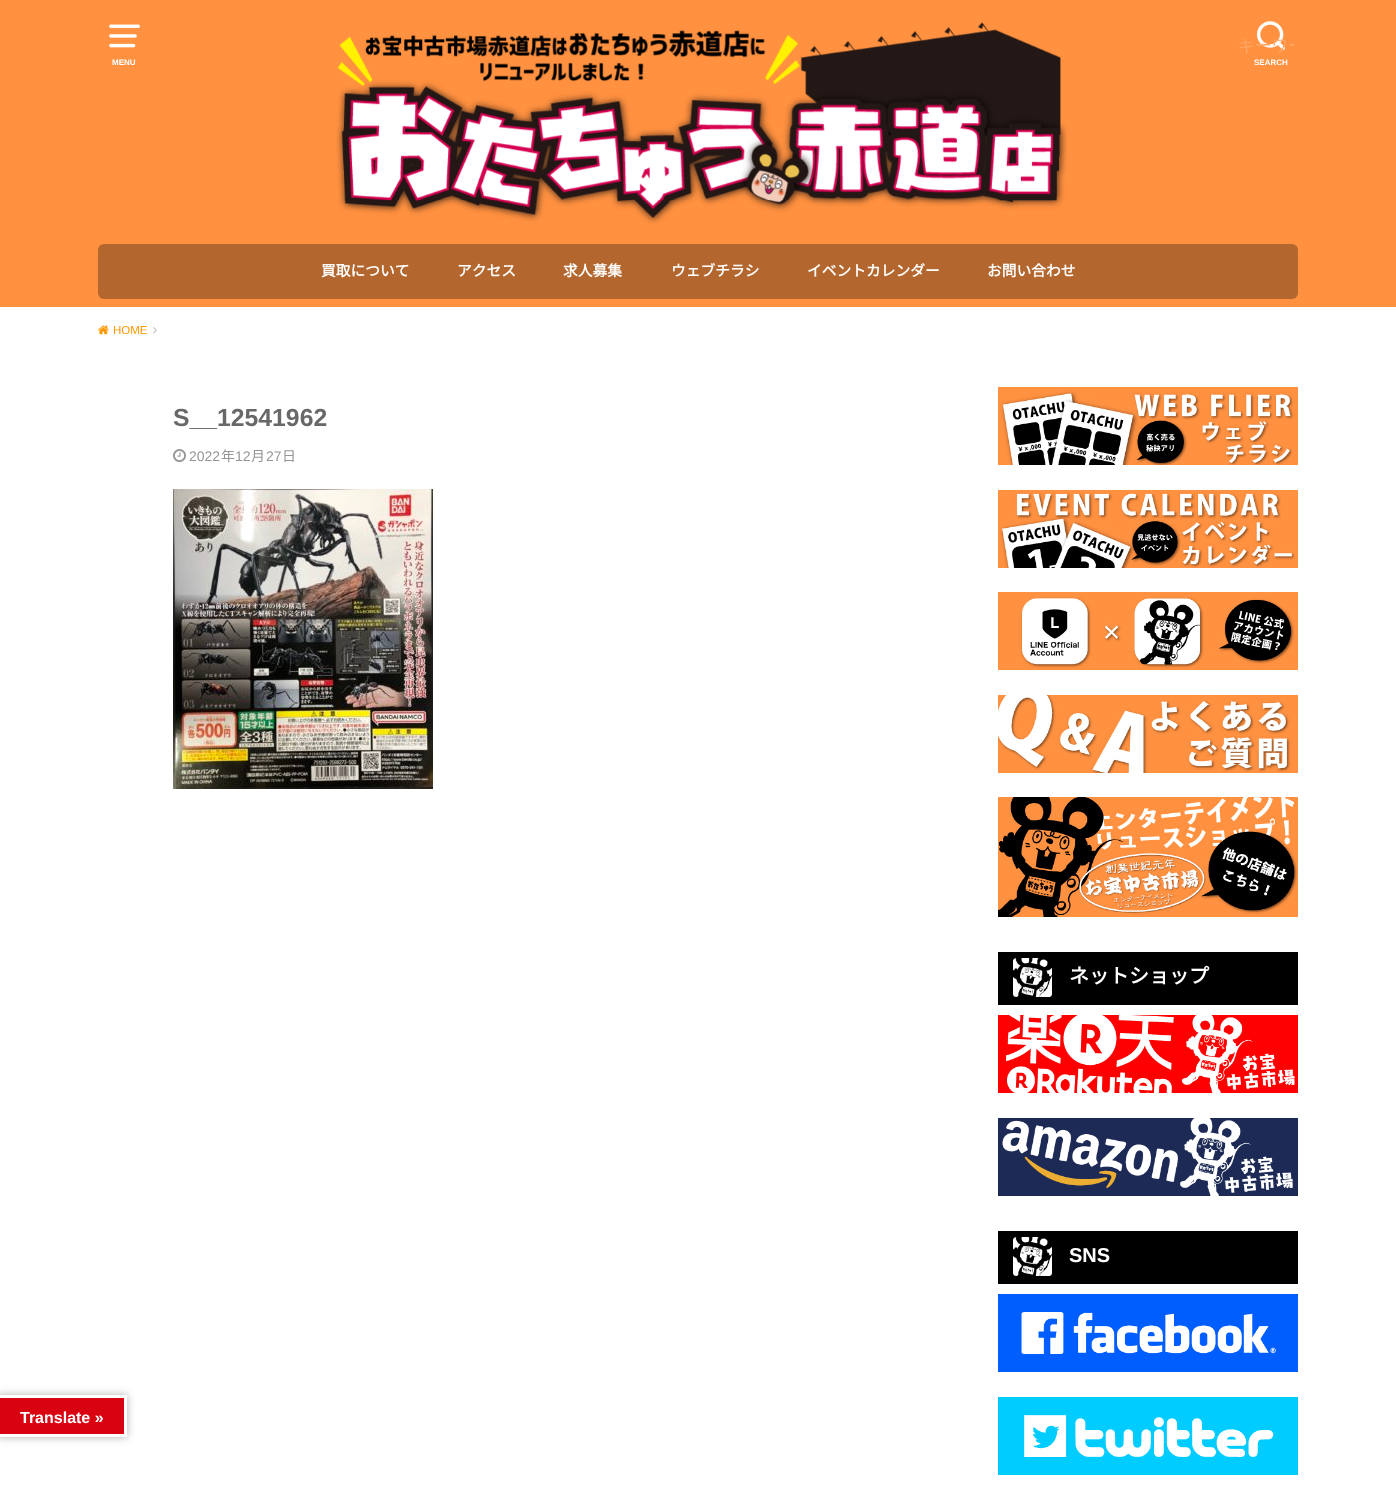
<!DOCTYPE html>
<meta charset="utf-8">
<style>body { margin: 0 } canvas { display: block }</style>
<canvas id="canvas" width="1396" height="1487"></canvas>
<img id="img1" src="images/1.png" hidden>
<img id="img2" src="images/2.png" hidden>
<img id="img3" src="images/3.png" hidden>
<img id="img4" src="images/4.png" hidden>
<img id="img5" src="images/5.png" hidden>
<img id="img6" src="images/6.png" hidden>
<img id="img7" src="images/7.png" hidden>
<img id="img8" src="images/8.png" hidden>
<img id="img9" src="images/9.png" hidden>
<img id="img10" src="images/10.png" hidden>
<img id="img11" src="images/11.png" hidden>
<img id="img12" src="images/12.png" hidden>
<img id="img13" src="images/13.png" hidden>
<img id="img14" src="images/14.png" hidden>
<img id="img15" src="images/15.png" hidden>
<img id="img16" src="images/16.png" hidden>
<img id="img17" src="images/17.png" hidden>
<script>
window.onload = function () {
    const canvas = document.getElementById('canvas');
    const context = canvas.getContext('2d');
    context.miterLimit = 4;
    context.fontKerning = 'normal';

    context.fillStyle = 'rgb(255, 255, 255)';
    context.fillRect(0, 0, 1396, 1487);
    context.fillStyle = 'rgb(255, 145, 64)';
    context.fillRect(0, 0, 1396, 307);
    context.drawImage(document.getElementById('img1'), 109, 24, 31, 24);
    context.drawImage(document.getElementById('img2'), 336, 22, 731, 202);
    context.drawImage(document.getElementById('img3'), 1256, 21, 29, 29);
    context.fillStyle = 'rgb(179, 102, 45)';
    context.beginPath();
    context.roundRect(98, 244, 1200, 55, 6);
    context.fill();
    context.drawImage(document.getElementById('img4'), 98, 325, 11, 10);
    context.drawImage(document.getElementById('img5'), 153, 327, 4, 7);
    context.drawImage(document.getElementById('img6'), 173, 449, 13, 14);
    context.drawImage(document.getElementById('img7'), 173, 489, 260, 300);
    context.drawImage(document.getElementById('img8'), 998, 387, 300, 78);
    context.drawImage(document.getElementById('img9'), 998, 490, 300, 78);
    context.drawImage(document.getElementById('img10'), 998, 592, 300, 78);
    context.drawImage(document.getElementById('img11'), 998, 695, 300, 78);
    context.drawImage(document.getElementById('img12'), 998, 797, 300, 120);
    context.fillStyle = 'rgb(0, 0, 0)';
    context.fillRect(998, 952, 300, 53);
    context.drawImage(document.getElementById('img13'), 1013, 958, 39, 39);
    context.drawImage(document.getElementById('img14'), 998, 1015, 300, 78);
    context.drawImage(document.getElementById('img15'), 998, 1118, 300, 78);
    context.fillRect(998, 1231, 300, 53);
    context.drawImage(document.getElementById('img13'), 1013, 1237, 39, 39);
    context.drawImage(document.getElementById('img16'), 998, 1294, 300, 78);
    context.drawImage(document.getElementById('img17'), 998, 1397, 300, 78);
    context.fillStyle = 'rgba(0, 0, 0, 0.3)';
    context.filter = 'blur(4.5px)';
    context.beginPath();
    context.rect(-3, 1395, 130, 42);
    context.fill();
    context.filter = 'none';
    context.fillStyle = 'rgb(217, 2, 16)';
    context.beginPath();
    context.rect(-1.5, 1396.5, 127, 39);
    context.fill();
    context.strokeStyle = 'rgb(255, 255, 255)';
    context.lineWidth = 3;
    context.stroke();
    context.font = 'bold 8px Liberation Sans';
    context.fillStyle = 'rgb(255, 255, 255)';
    context.fillText('MENU', 112, 65);
    context.save();
    context.beginPath();
    context.rect(1238, 35, 56, 22);
    context.clip();
    context.font = '500 16.5px WenQuanYi Zen Hei';
    context.fillStyle = 'rgb(255, 168, 104)';
    context.fillText('キーワー', 1238, 51);
    context.restore();
    context.fillText('SEARCH', 1254, 65);
    context.font = 'bold 14.75px Noto Sans JP';
    context.fillText('買取について', 321, 276);
    context.fillText('アクセス', 457, 276);
    context.fillText('求人募集', 563, 276);
    context.fillText('ウェブチラシ', 671, 276);
    context.fillText('イベントカレンダー', 807, 276);
    context.fillText('お問い合わせ', 987, 276);
    context.font = '11.5px Liberation Sans';
    context.fillStyle = 'rgb(255, 152, 0)';
    context.fillText('HOME', 113, 334);
    context.font = 'bold 24.75px Liberation Sans';
    context.fillStyle = 'rgb(104, 104, 104)';
    context.fillText('S__12541962', 173, 426);
    context.font = '14px Liberation Sans';
    context.fillStyle = 'rgb(149, 149, 149)';
    context.fillText('2022', 189, 461);
    context.font = '100 14px Noto Sans JP';
    context.fillText('年', 221, 461);
    context.font = '14px Liberation Sans';
    context.fillText('12', 235, 461);
    context.font = '100 14px Noto Sans JP';
    context.fillText('月', 251, 461);
    context.font = '14px Liberation Sans';
    context.fillText('27', 266, 461);
    context.font = '100 14px Noto Sans JP';
    context.fillText('日', 282, 461);
    context.font = 'bold 20px Noto Sans JP';
    context.fillStyle = 'rgb(255, 255, 255)';
    context.fillText('ネットショップ', 1069, 983);
    context.font = 'bold 20px Liberation Sans';
    context.fillText('SNS', 1069, 1262);
    context.font = 'bold 16px Liberation Sans';
    context.fillText('Translate »', 20, 1423);
};
</script>
